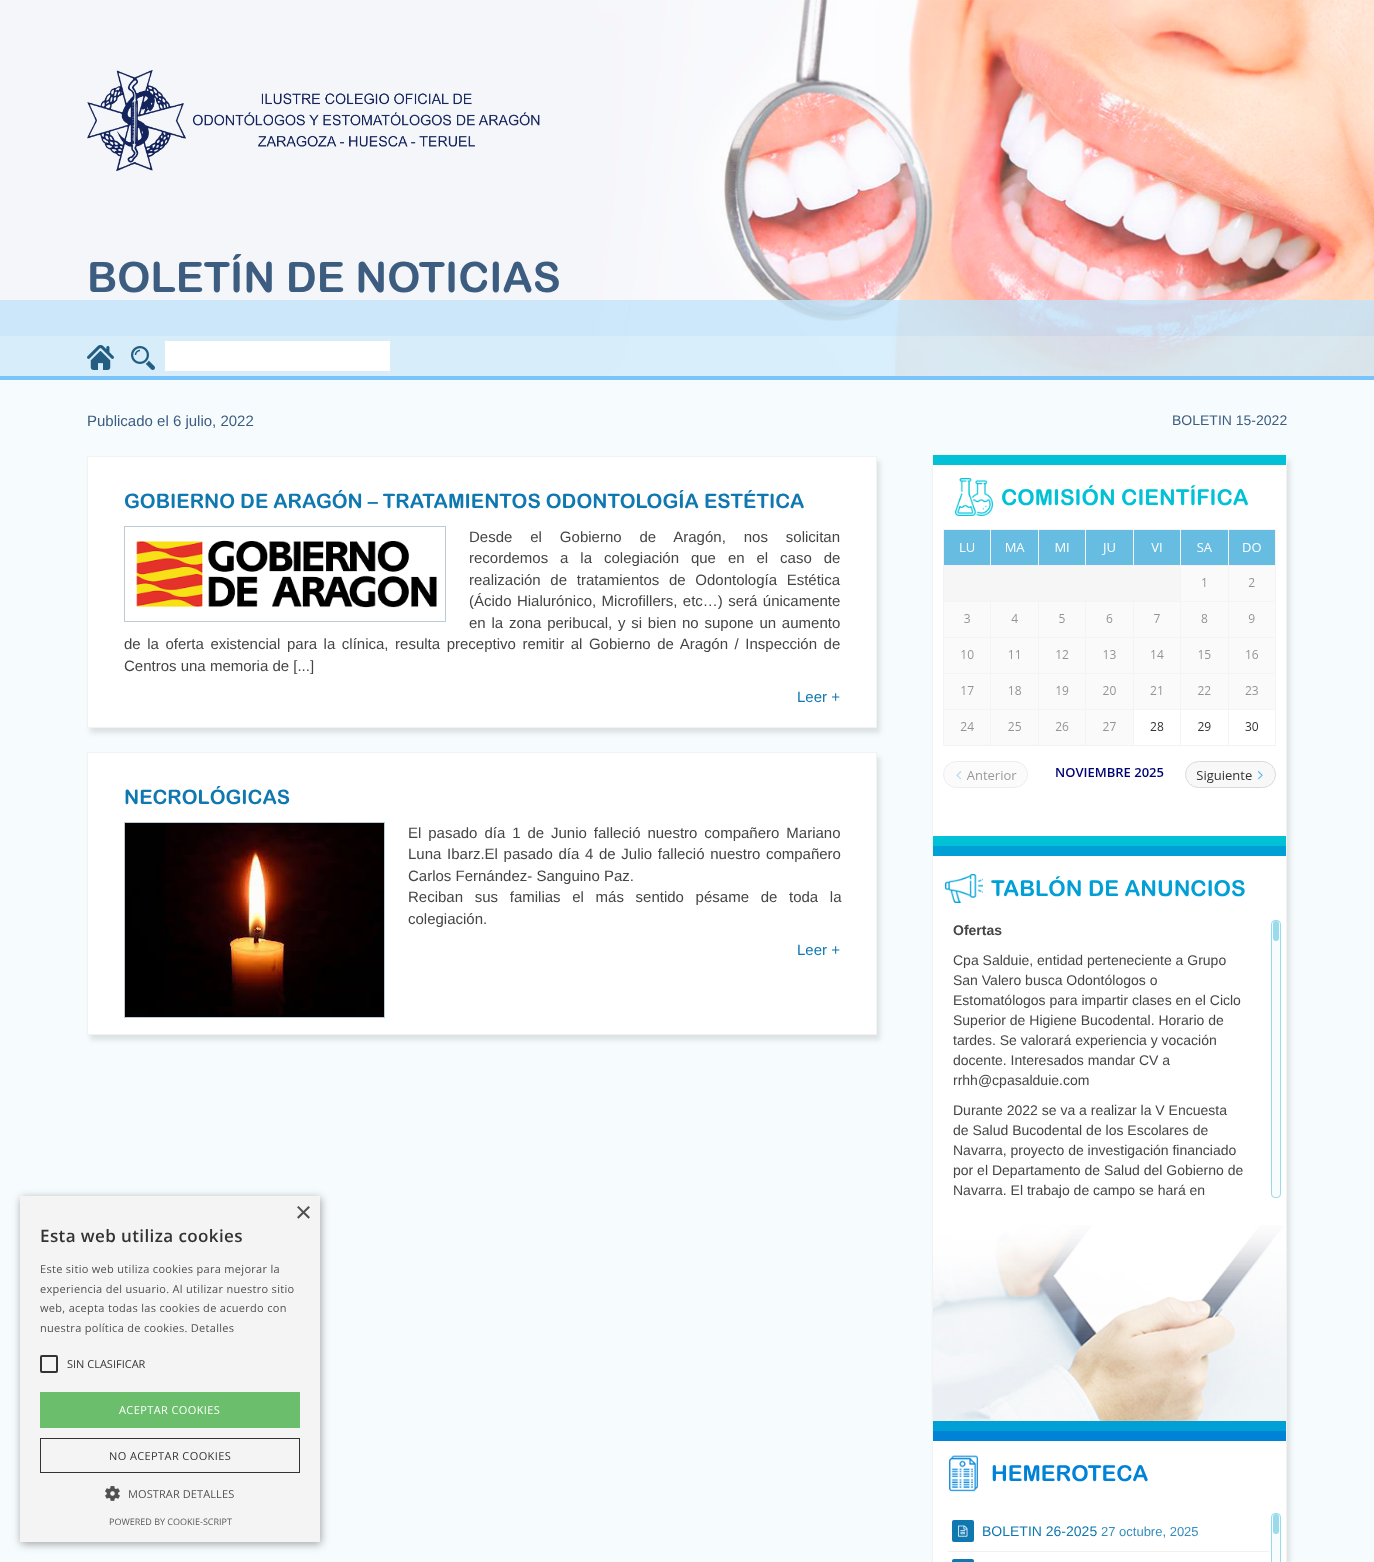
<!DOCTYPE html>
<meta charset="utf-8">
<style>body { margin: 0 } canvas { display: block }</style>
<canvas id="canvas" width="1374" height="1562"></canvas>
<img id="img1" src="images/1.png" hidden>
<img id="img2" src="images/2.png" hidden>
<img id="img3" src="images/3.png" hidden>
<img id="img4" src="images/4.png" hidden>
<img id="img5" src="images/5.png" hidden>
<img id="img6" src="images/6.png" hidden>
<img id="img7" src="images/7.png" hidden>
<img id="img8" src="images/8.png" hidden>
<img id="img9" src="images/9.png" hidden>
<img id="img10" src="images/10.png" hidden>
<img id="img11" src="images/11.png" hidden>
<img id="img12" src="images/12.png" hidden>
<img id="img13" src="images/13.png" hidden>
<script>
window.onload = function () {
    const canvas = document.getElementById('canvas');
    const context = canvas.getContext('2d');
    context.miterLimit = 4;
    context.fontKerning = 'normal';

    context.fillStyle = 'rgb(246, 251, 254)';
    context.fillRect(0, 0, 1374, 1562);
    context.drawImage(document.getElementById('img1'), 0, 0, 1374, 376);
    context.drawImage(document.getElementById('img2'), 87, 70, 453, 101);
    context.fillStyle = 'rgba(194, 228, 250, 0.8)';
    context.fillRect(0, 300, 1374, 36);
    context.fillStyle = 'rgba(208, 235, 250, 0.8)';
    context.fillRect(0, 336, 1374, 40);
    context.fillStyle = 'rgb(121, 197, 251)';
    context.fillRect(0, 376, 1374, 4);
    context.drawImage(document.getElementById('img3'), 87, 345, 27, 25);
    context.drawImage(document.getElementById('img4'), 131, 346, 24, 24);
    context.fillStyle = 'rgb(255, 255, 255)';
    context.fillRect(165, 341, 225, 30);
    context.fillStyle = 'rgba(0, 0, 0, 0.1)';
    context.filter = 'blur(2.5px)';
    context.beginPath();
    context.rect(90, 461, 790, 272);
    context.fill();
    context.filter = 'none';
    context.fillStyle = 'rgb(255, 255, 255)';
    context.beginPath();
    context.rect(87.5, 456.5, 789, 271);
    context.fill();
    context.strokeStyle = 'rgb(242, 242, 242)';
    context.stroke();
    context.strokeStyle = 'rgb(184, 203, 214)';
    context.strokeRect(124.5, 526.5, 321, 95);
    context.drawImage(document.getElementById('img5'), 136, 540, 301, 68);
    context.fillStyle = 'rgba(0, 0, 0, 0.1)';
    context.filter = 'blur(2.5px)';
    context.beginPath();
    context.rect(90, 757, 790, 283);
    context.fill();
    context.filter = 'none';
    context.fillStyle = 'rgb(255, 255, 255)';
    context.beginPath();
    context.rect(87.5, 752.5, 789, 282);
    context.fill();
    context.strokeStyle = 'rgb(242, 242, 242)';
    context.stroke();
    context.strokeStyle = 'rgb(184, 203, 214)';
    context.strokeRect(124.5, 822.5, 260, 195);
    context.drawImage(document.getElementById('img6'), 125, 823, 259, 194);
    context.fillStyle = 'rgba(0, 0, 0, 0.1)';
    context.filter = 'blur(2.5px)';
    context.beginPath();
    context.rect(935, 460, 355, 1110);
    context.fill();
    context.filter = 'none';
    context.fillStyle = 'rgb(242, 242, 242)';
    context.fillRect(1286, 455, 1, 1107);
    context.fillRect(932, 455, 1, 1107);
    context.fillStyle = 'rgb(255, 255, 255)';
    context.fillRect(933, 465, 353, 371);
    context.fillStyle = 'rgb(0, 193, 214)';
    context.fillRect(933, 455, 353, 10);
    context.fillRect(933, 836, 353, 10);
    context.drawImage(document.getElementById('img7'), 955, 478, 38, 38);
    context.drawImage(document.getElementById('img8'), 943, 529, 333, 259);
    context.fillStyle = 'rgb(255, 255, 255)';
    context.fillRect(933, 856, 353, 369);
    context.fillStyle = 'rgb(0, 160, 214)';
    context.fillRect(933, 846, 353, 10);
    context.fillRect(933, 1421, 353, 10);
    context.drawImage(document.getElementById('img9'), 945, 874, 38, 29);
    context.fillStyle = 'rgb(247, 252, 253)';
    context.beginPath();
    context.roundRect(1271.5, 920.5, 9, 277, 3.5);
    context.fill();
    context.strokeStyle = 'rgb(151, 219, 236)';
    context.stroke();
    context.fillStyle = 'rgb(151, 219, 236)';
    context.beginPath();
    context.roundRect(1273, 921, 6, 20, 3);
    context.fill();
    context.drawImage(document.getElementById('img10'), 933, 1225, 353, 196);
    context.fillStyle = 'rgb(255, 255, 255)';
    context.fillRect(933, 1441, 353, 121);
    context.fillStyle = 'rgb(0, 131, 214)';
    context.fillRect(933, 1431, 353, 10);
    context.drawImage(document.getElementById('img11'), 949, 1455, 29, 37);
    context.fillStyle = 'rgb(240, 240, 240)';
    context.fillRect(948, 1551, 321, 1);
    context.fillStyle = 'rgb(15, 120, 177)';
    context.beginPath();
    context.roundRect(952, 1520, 22, 22, 2);
    context.fill();
    context.drawImage(document.getElementById('img12'), 958, 1525, 10, 12);
    context.beginPath();
    context.roundRect(952, 1559, 22, 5, 2);
    context.fill();
    context.fillStyle = 'rgb(247, 252, 253)';
    context.beginPath();
    context.roundRect(1271.5, 1513.5, 9, 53, 3.5);
    context.fill();
    context.stroke();
    context.fillStyle = 'rgb(151, 219, 236)';
    context.beginPath();
    context.roundRect(1273, 1514, 6, 20, 3);
    context.fill();
    context.fillStyle = 'rgba(0, 0, 0, 0.35)';
    context.filter = 'blur(4px)';
    context.beginPath();
    context.rect(21, 1198, 300, 346);
    context.fill();
    context.filter = 'none';
    context.fillStyle = 'rgb(244, 244, 244)';
    context.fillRect(20, 1196, 300, 346);
    context.beginPath();
    context.roundRect(41, 1356, 16, 16, 1);
    context.strokeStyle = 'rgb(51, 51, 51)';
    context.lineWidth = 2;
    context.stroke();
    context.fillStyle = 'rgb(107, 190, 107)';
    context.fillRect(40, 1392, 260, 36);
    context.lineWidth = 1;
    context.strokeRect(40.5, 1438.5, 259, 34);
    context.drawImage(document.getElementById('img13'), 105, 1486, 15, 15);
    context.font = 'bold 42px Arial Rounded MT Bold';
    context.fillStyle = 'rgb(61, 93, 128)';
    context.fillText('BOLETÍN DE NOTICIAS', 87, 292);
    context.font = '15px Liberation Sans';
    context.fillText('Publicado el 6 julio, 2022', 87, 426);
    context.font = 'bold 20px Arial Rounded MT Bold';
    context.fillStyle = 'rgb(15, 120, 177)';
    context.fillText('GOBIERNO DE ARAGÓN – TRATAMIENTOS ODONTOLOGÍA ESTÉTICA', 124, 508);
    context.wordSpacing = '13.75px';
    context.font = '15px Liberation Sans';
    context.fillStyle = 'rgb(69, 69, 69)';
    context.fillText('Desde el Gobierno de Aragón, nos solicitan', 469, 542);
    context.wordSpacing = '7.75px';
    context.fillText('recordemos a la colegiación que en el caso de', 469, 563);
    context.wordSpacing = '5.5px';
    context.fillText('realización de tratamientos de Odontología Estética', 469, 585);
    context.wordSpacing = '1.25px';
    context.fillText('(Ácido Hialurónico, Microfillers, etc…) será únicamente', 469, 606);
    context.wordSpacing = '1.6px';
    context.fillText('en la zona peribucal, y si bien no supone un aumento', 469, 628);
    context.wordSpacing = '2.4px';
    context.fillText('de la oferta existencial para la clínica, resulta preceptivo remitir al Gobierno de Aragón / Inspección de', 124, 649);
    context.wordSpacing = '0px';
    context.fillText('Centros una memoria de [...]', 124, 671);
    context.fillStyle = 'rgb(15, 120, 177)';
    context.fillText('Leer +', 797, 702);
    context.font = 'bold 20px Arial Rounded MT Bold';
    context.fillText('NECROLÓGICAS', 124, 804);
    context.wordSpacing = '2.75px';
    context.font = '15px Liberation Sans';
    context.fillStyle = 'rgb(69, 69, 69)';
    context.fillText('El pasado día 1 de Junio falleció nuestro compañero Mariano', 408, 838);
    context.wordSpacing = '1.5px';
    context.fillText('Luna Ibarz.El pasado día 4 de Julio falleció nuestro compañero', 408, 859);
    context.wordSpacing = '0px';
    context.fillText('Carlos Fernández- Sanguino Paz.', 408, 881);
    context.wordSpacing = '7.5px';
    context.fillText('Reciban sus familias el más sentido pésame de toda la', 408, 902);
    context.wordSpacing = '0px';
    context.fillText('colegiación.', 408, 924);
    context.fillStyle = 'rgb(15, 120, 177)';
    context.fillText('Leer +', 797, 955);
    context.font = '14px Liberation Sans';
    context.fillStyle = 'rgb(61, 93, 128)';
    context.fillText('BOLETIN 15-2022', 1172, 425);
    context.font = 'bold 22px Arial Rounded MT Bold';
    context.fillStyle = 'rgb(0, 193, 214)';
    context.fillText('COMISIÓN CIENTÍFICA', 1001, 505);
    context.fillStyle = 'rgb(0, 160, 214)';
    context.fillText('TABLÓN DE ANUNCIOS', 991, 896);
    context.font = 'bold 14px Liberation Sans';
    context.fillStyle = 'rgb(69, 69, 69)';
    context.fillText('Ofertas', 953, 935);
    context.font = '14px Liberation Sans';
    context.fillText('Cpa Salduie, entidad perteneciente a Grupo', 953, 965);
    context.fillText('San Valero busca Odontólogos o', 953, 985);
    context.fillText('Estomatólogos para impartir clases en el Ciclo', 953, 1005);
    context.fillText('Superior de Higiene Bucodental. Horario de', 953, 1025);
    context.fillText('tardes. Se valorará experiencia y vocación', 953, 1045);
    context.fillText('docente. Interesados mandar CV a', 953, 1065);
    context.fillText('rrhh@cpasalduie.com', 953, 1085);
    context.fillText('Durante 2022 se va a realizar la V Encuesta', 953, 1115);
    context.fillText('de Salud Bucodental de los Escolares de', 953, 1135);
    context.fillText('Navarra, proyecto de investigación financiado', 953, 1155);
    context.fillText('por el Departamento de Salud del Gobierno de', 953, 1175);
    context.fillText('Navarra. El trabajo de campo se hará en', 953, 1195);
    context.font = 'bold 22px Arial Rounded MT Bold';
    context.fillStyle = 'rgb(0, 131, 214)';
    context.fillText('HEMEROTECA', 991, 1481);
    context.font = '14px Liberation Sans';
    context.fillStyle = 'rgb(15, 120, 177)';
    context.fillText('BOLETIN 26-2025', 982, 1536);
    context.font = '13px Liberation Sans';
    context.fillStyle = 'rgb(53, 141, 189)';
    context.fillText('27 octubre, 2025', 1101, 1536);
    context.font = '29px Liberation Sans';
    context.fillStyle = 'rgb(80, 80, 80)';
    context.fillText('×', 295, 1222);
    context.letterSpacing = '0.4px';
    context.font = '600 17px Open Sans';
    context.fillStyle = 'rgb(51, 51, 51)';
    context.fillText('Esta web utiliza cookies', 40, 1242);
    context.letterSpacing = '0.3px';
    context.font = '11px Open Sans';
    context.fillStyle = 'rgb(80, 80, 80)';
    context.fillText('Este sitio web utiliza cookies para mejorar la', 40, 1273);
    context.fillText('experiencia del usuario. Al utilizar nuestro sitio', 40, 1293);
    context.fillText('web, acepta todas las cookies de acuerdo con', 40, 1312);
    context.fillText('nuestra política de cookies. Detalles', 40, 1332);
    context.letterSpacing = '0px';
    context.fillStyle = 'rgb(51, 51, 51)';
    context.fillText('SIN CLASIFICAR', 67, 1368);
    context.letterSpacing = '0.4px';
    context.fillStyle = 'rgb(255, 255, 255)';
    context.fillText('ACEPTAR COOKIES', 119, 1414);
    context.fillStyle = 'rgb(51, 51, 51)';
    context.fillText('NO ACEPTAR COOKIES', 109, 1460);
    context.letterSpacing = '0.1px';
    context.fillStyle = 'rgb(80, 80, 80)';
    context.fillText('MOSTRAR DETALLES', 128, 1498);
    context.letterSpacing = '0px';
    context.font = '9px Open Sans';
    context.fillStyle = 'rgb(90, 90, 90)';
    context.fillText('POWERED BY COOKIE-SCRIPT', 109, 1525);
};
</script>
